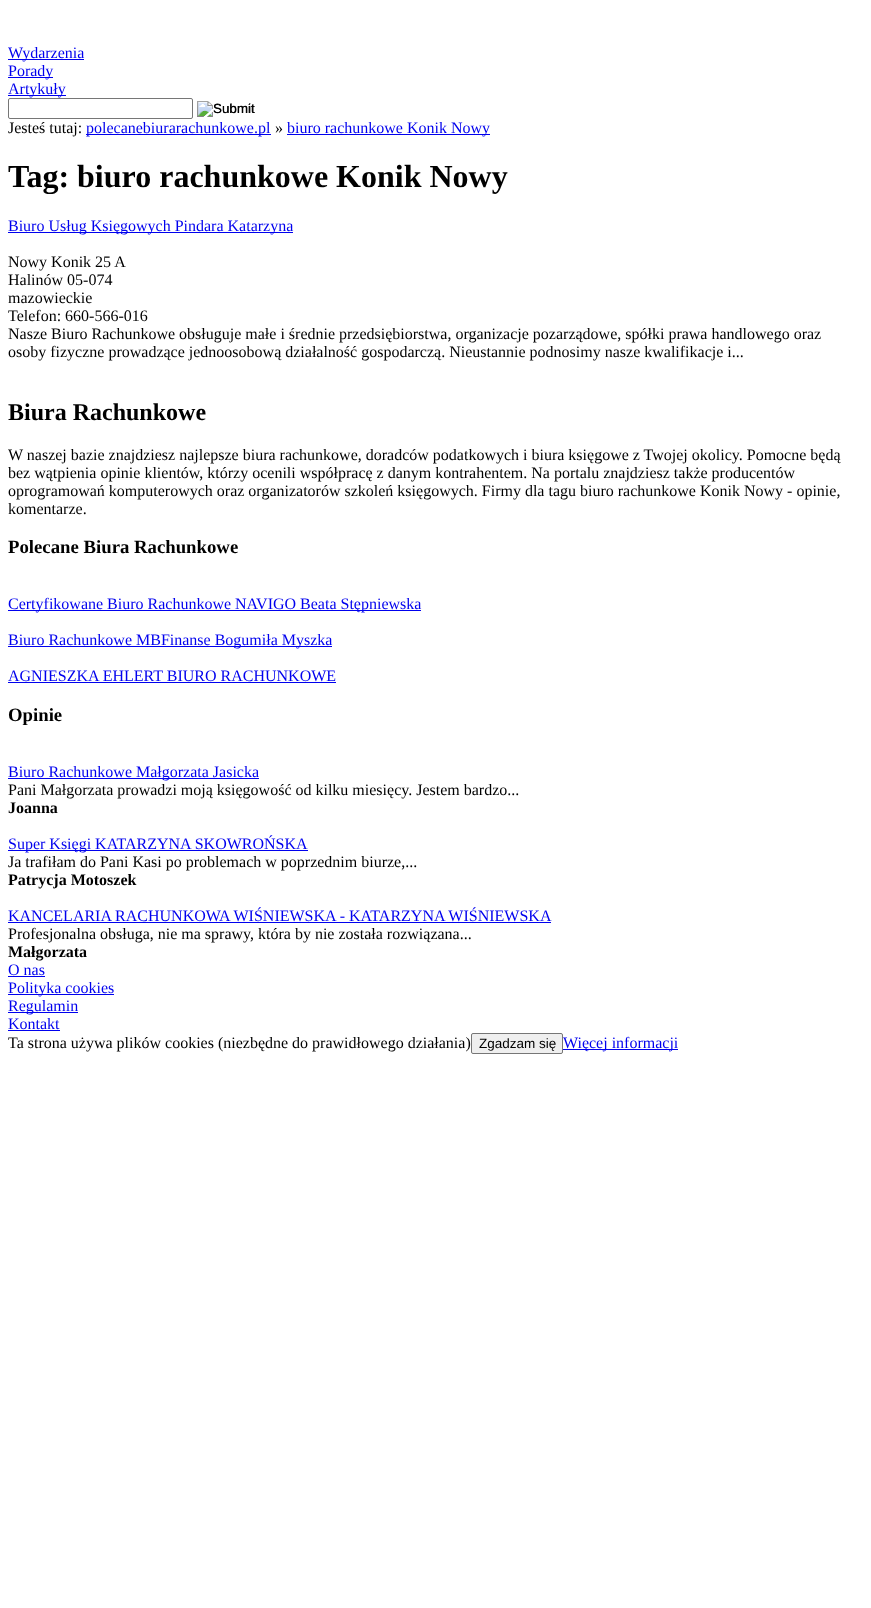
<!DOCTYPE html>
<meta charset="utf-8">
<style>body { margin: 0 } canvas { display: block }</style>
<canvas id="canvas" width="871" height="1608"></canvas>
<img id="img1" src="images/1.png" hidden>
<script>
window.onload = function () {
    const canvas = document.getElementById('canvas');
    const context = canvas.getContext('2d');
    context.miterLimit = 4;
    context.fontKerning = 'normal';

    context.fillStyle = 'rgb(255, 255, 255)';
    context.fillRect(0, 0, 871, 1608);
    context.fillStyle = 'rgb(0, 0, 238)';
    context.fillRect(8, 59, 76, 1);
    context.fillRect(8, 77, 45, 1);
    context.fillRect(8, 95, 58, 1);
    context.beginPath();
    context.roundRect(8.5, 98.5, 184, 20, 1.5);
    context.strokeStyle = 'rgb(118, 118, 118)';
    context.stroke();
    context.drawImage(document.getElementById('img1'), 197, 101, 57, 16);
    context.fillRect(86, 134, 185, 1);
    context.fillRect(287, 134, 203, 1);
    context.fillRect(8, 232, 285, 1);
    context.fillRect(8, 610, 413, 1);
    context.fillRect(8, 646, 324, 1);
    context.fillRect(8, 682, 328, 1);
    context.fillRect(8, 778, 251, 1);
    context.fillRect(8, 850, 300, 1);
    context.fillRect(8, 922, 543, 1);
    context.fillRect(8, 976, 37, 1);
    context.fillRect(8, 994, 106, 1);
    context.fillRect(8, 1012, 70, 1);
    context.fillRect(8, 1030, 52, 1);
    context.fillStyle = 'rgb(239, 239, 239)';
    context.beginPath();
    context.roundRect(471.5, 1033.5, 91, 20, 1.5);
    context.fill();
    context.stroke();
    context.fillStyle = 'rgb(0, 0, 238)';
    context.fillRect(563, 1049, 115, 1);
    context.font = '16px Liberation Serif';
    context.fillText('Wydarzenia', 8, 58);
    context.fillText('Porady', 8, 76);
    context.fillText('Artykuły', 8, 94);
    context.font = '13.5px Liberation Sans';
    context.fillStyle = 'rgb(0, 0, 0)';
    context.fillText('Submit', 213, 113);
    context.font = '16px Liberation Serif';
    context.fillText('Jesteś tutaj:', 8, 133);
    context.fillStyle = 'rgb(0, 0, 238)';
    context.fillText('polecanebiurarachunkowe.pl', 86, 133);
    context.fillStyle = 'rgb(0, 0, 0)';
    context.fillText('»', 275, 133);
    context.fillStyle = 'rgb(0, 0, 238)';
    context.fillText('biuro rachunkowe Konik Nowy', 287, 133);
    context.font = 'bold 32px Liberation Serif';
    context.fillStyle = 'rgb(0, 0, 0)';
    context.fillText('Tag: biuro rachunkowe Konik Nowy', 8, 187);
    context.font = '16px Liberation Serif';
    context.fillStyle = 'rgb(0, 0, 238)';
    context.fillText('Biuro Usług Księgowych Pindara Katarzyna', 8, 231);
    context.fillStyle = 'rgb(0, 0, 0)';
    context.fillText('Nowy Konik 25 A', 8, 267);
    context.fillText('Halinów 05-074', 8, 285);
    context.fillText('mazowieckie', 8, 303);
    context.fillText('Telefon: 660-566-016', 8, 321);
    context.fillText('Nasze Biuro Rachunkowe obsługuje małe i średnie przedsiębiorstwa, organizacje pozarządowe, spółki prawa handlowego oraz', 8, 339);
    context.fillText('osoby fizyczne prowadzące jednoosobową działalność gospodarczą. Nieustannie podnosimy nasze kwalifikacje i...', 8, 357);
    context.font = 'bold 24px Liberation Serif';
    context.fillText('Biura Rachunkowe', 8, 420);
    context.font = '16px Liberation Serif';
    context.fillText('W naszej bazie znajdziesz najlepsze biura rachunkowe, doradców podatkowych i biura księgowe z Twojej okolicy. Pomocne będą', 8, 460);
    context.fillText('bez wątpienia opinie klientów, którzy ocenili współpracę z danym kontrahentem. Na portalu znajdziesz także producentów', 8, 478);
    context.fillText('oprogramowań komputerowych oraz organizatorów szkoleń księgowych. Firmy dla tagu biuro rachunkowe Konik Nowy - opinie,', 8, 496);
    context.fillText('komentarze.', 8, 514);
    context.font = 'bold 18.75px Liberation Serif';
    context.fillText('Polecane Biura Rachunkowe', 8, 553);
    context.font = '16px Liberation Serif';
    context.fillStyle = 'rgb(0, 0, 238)';
    context.fillText('Certyfikowane Biuro Rachunkowe NAVIGO Beata Stępniewska', 8, 609);
    context.fillText('Biuro Rachunkowe MBFinanse Bogumiła Myszka', 8, 645);
    context.fillText('AGNIESZKA EHLERT BIURO RACHUNKOWE', 8, 681);
    context.font = 'bold 18.75px Liberation Serif';
    context.fillStyle = 'rgb(0, 0, 0)';
    context.fillText('Opinie', 8, 721);
    context.font = '16px Liberation Serif';
    context.fillStyle = 'rgb(0, 0, 238)';
    context.fillText('Biuro Rachunkowe Małgorzata Jasicka', 8, 777);
    context.fillStyle = 'rgb(0, 0, 0)';
    context.fillText('Pani Małgorzata prowadzi moją księgowość od kilku miesięcy. Jestem bardzo...', 8, 795);
    context.font = 'bold 16px Liberation Serif';
    context.fillText('Joanna', 8, 813);
    context.font = '16px Liberation Serif';
    context.fillStyle = 'rgb(0, 0, 238)';
    context.fillText('Super Księgi KATARZYNA SKOWROŃSKA', 8, 849);
    context.fillStyle = 'rgb(0, 0, 0)';
    context.fillText('Ja trafiłam do Pani Kasi po problemach w poprzednim biurze,...', 8, 867);
    context.font = 'bold 16px Liberation Serif';
    context.fillText('Patrycja Motoszek', 8, 885);
    context.font = '16px Liberation Serif';
    context.fillStyle = 'rgb(0, 0, 238)';
    context.fillText('KANCELARIA RACHUNKOWA WIŚNIEWSKA - KATARZYNA WIŚNIEWSKA', 8, 921);
    context.fillStyle = 'rgb(0, 0, 0)';
    context.fillText('Profesjonalna obsługa, nie ma sprawy, która by nie została rozwiązana...', 8, 939);
    context.font = 'bold 16px Liberation Serif';
    context.fillText('Małgorzata', 8, 957);
    context.font = '16px Liberation Serif';
    context.fillStyle = 'rgb(0, 0, 238)';
    context.fillText('O nas', 8, 975);
    context.fillText('Polityka cookies', 8, 993);
    context.fillText('Regulamin', 8, 1011);
    context.fillText('Kontakt', 8, 1029);
    context.fillStyle = 'rgb(0, 0, 0)';
    context.fillText('Ta strona używa plików cookies (niezbędne do prawidłowego działania)', 8, 1048);
    context.font = '13.5px Liberation Sans';
    context.fillText('Zgadzam się', 479, 1048);
    context.font = '16px Liberation Serif';
    context.fillStyle = 'rgb(0, 0, 238)';
    context.fillText('Więcej informacji', 563, 1048);
};
</script>
